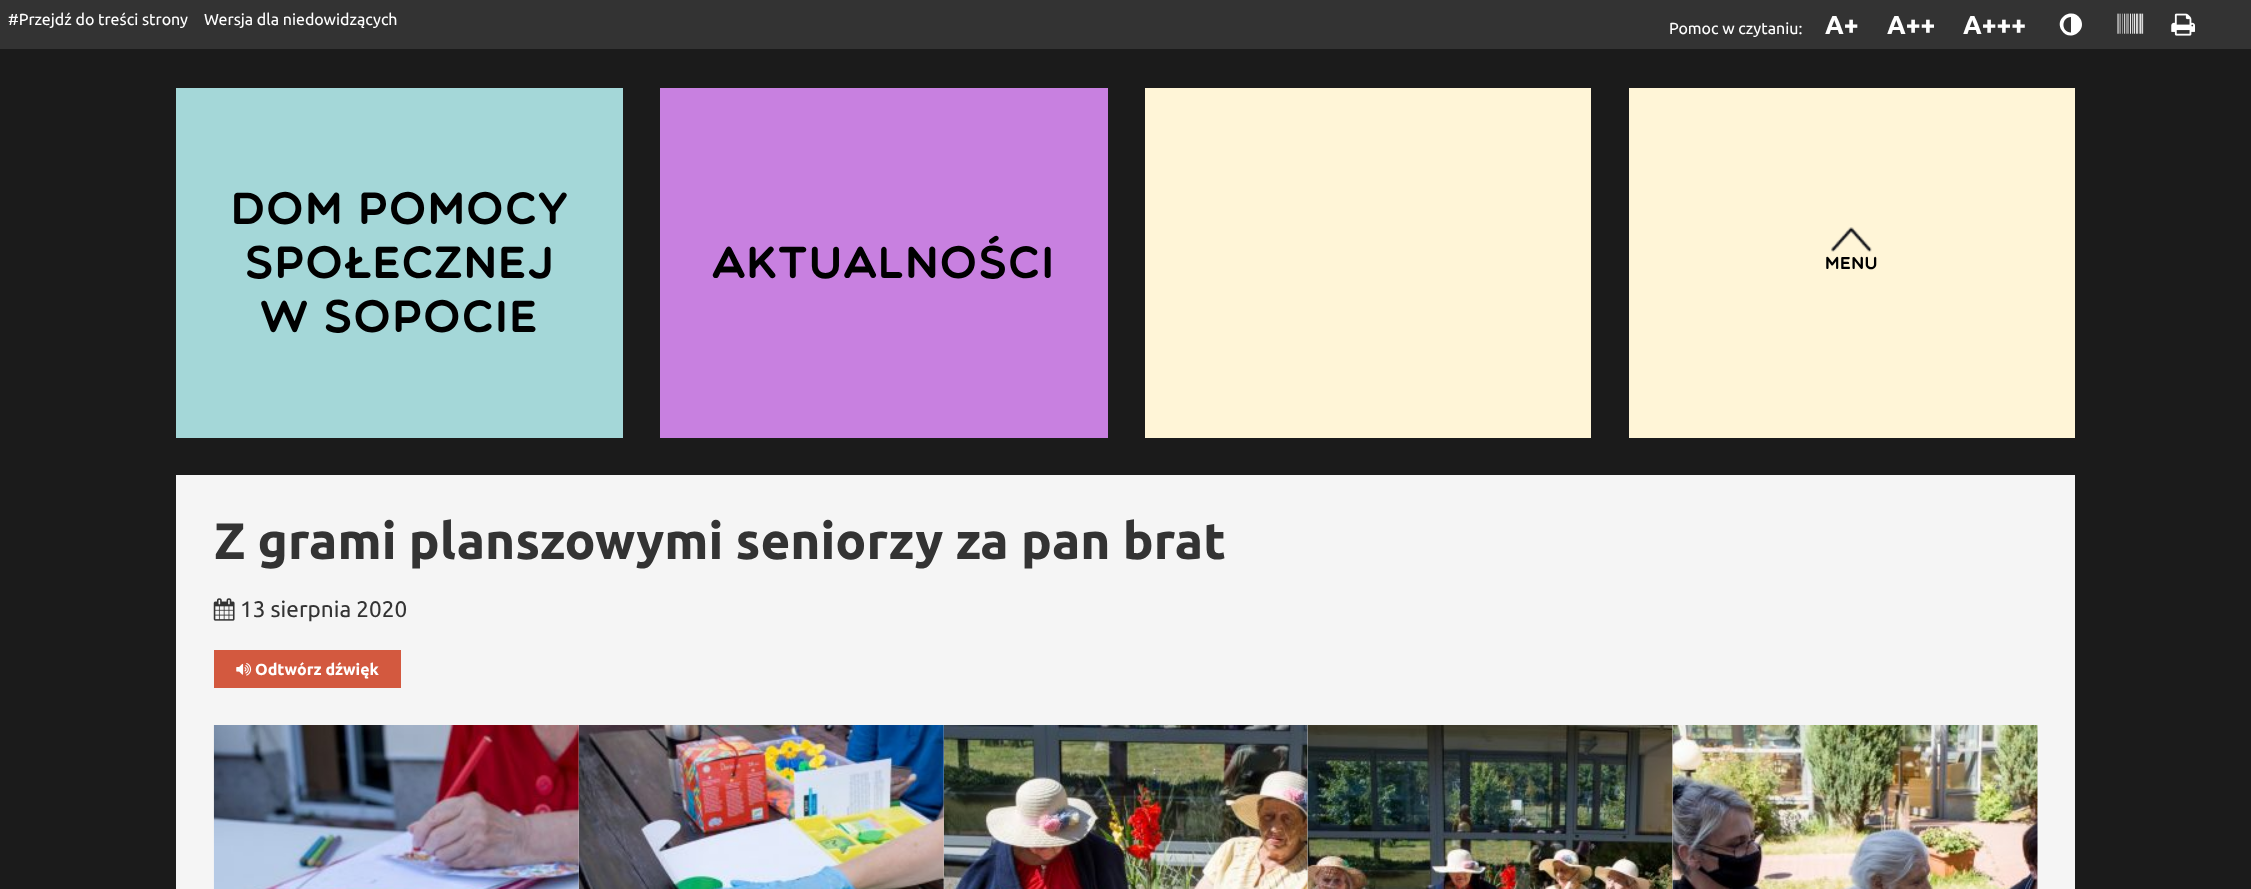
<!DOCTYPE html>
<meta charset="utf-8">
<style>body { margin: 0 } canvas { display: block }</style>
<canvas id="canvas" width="2251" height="889"></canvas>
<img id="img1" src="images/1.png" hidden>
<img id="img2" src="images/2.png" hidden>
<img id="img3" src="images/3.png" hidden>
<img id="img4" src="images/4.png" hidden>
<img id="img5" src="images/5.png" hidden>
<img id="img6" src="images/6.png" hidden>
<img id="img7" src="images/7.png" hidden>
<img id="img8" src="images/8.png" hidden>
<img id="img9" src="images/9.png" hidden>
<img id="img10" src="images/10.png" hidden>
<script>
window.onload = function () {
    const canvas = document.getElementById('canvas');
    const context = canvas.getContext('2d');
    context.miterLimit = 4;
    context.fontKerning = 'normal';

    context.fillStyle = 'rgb(27, 27, 27)';
    context.fillRect(0, 0, 2251, 889);
    context.fillStyle = 'rgb(51, 51, 51)';
    context.fillRect(0, 0, 2251, 49);
    context.fillStyle = 'rgb(255, 255, 255)';
    context.beginPath();
    context.moveTo(2071, 32.5);
    context.lineTo(2071, 17);
    context.bezierCurveTo(2061, 17, 2061, 32.5, 2071, 32.5);
    context.closePath();
    context.moveTo(2080.5, 19);
    context.bezierCurveTo(2087.5, 31.5, 2068.5, 42.5, 2061.5, 30);
    context.bezierCurveTo(2054, 17.5, 2073, 6.5, 2080.5, 19);
    context.closePath();
    context.fill();
    context.drawImage(document.getElementById('img1'), 2117, 13, 27, 21);
    context.drawImage(document.getElementById('img2'), 2171, 13, 24, 23);
    context.fillStyle = 'rgb(164, 215, 216)';
    context.fillRect(176, 88, 447, 350);
    context.fillStyle = 'rgb(200, 128, 224)';
    context.fillRect(660, 88, 448, 350);
    context.fillStyle = 'rgb(255, 245, 215)';
    context.fillRect(1145, 88, 446, 350);
    context.fillRect(1629, 88, 446, 350);
    context.drawImage(document.getElementById('img3'), 1831, 227, 41, 25);
    context.fillStyle = 'rgb(245, 245, 245)';
    context.fillRect(176, 475, 1899, 414);
    context.drawImage(document.getElementById('img4'), 213, 598, 22, 23);
    context.fillStyle = 'rgb(211, 89, 63)';
    context.fillRect(214, 650, 187, 38);
    context.drawImage(document.getElementById('img5'), 236, 663, 16, 13);
    context.drawImage(document.getElementById('img6'), 213, 725, 366, 164);
    context.drawImage(document.getElementById('img7'), 578, 725, 366, 164);
    context.drawImage(document.getElementById('img8'), 943, 725, 365, 164);
    context.drawImage(document.getElementById('img9'), 1307, 725, 366, 164);
    context.drawImage(document.getElementById('img10'), 1672, 725, 366, 164);
    context.font = '16px Ubuntu';
    context.fillStyle = 'rgb(255, 255, 255)';
    context.fillText('#Przejdź do treści strony', 8, 25);
    context.fillText('Wersja dla niedowidzących', 204, 25);
    context.fillText('Pomoc w czytaniu:', 1669, 34);
    context.font = 'bold 26px Ubuntu';
    context.fillText('A+', 1825, 34);
    context.fillText('A++', 1887, 34);
    context.fillText('A+++', 1963, 34);
    context.letterSpacing = '1.4px';
    context.font = 'bold 45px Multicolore';
    context.fillStyle = 'rgb(0, 0, 0)';
    context.fillText('Dom Pomocy', 231, 224);
    context.fillText('Społecznej', 245, 278);
    context.fillText('w Sopocie', 260, 332);
    context.fillText('Aktualności', 712, 278);
    context.letterSpacing = '0.5px';
    context.font = 'bold 17.5px Multicolore';
    context.fillText('Menu', 1825, 269);
    context.letterSpacing = '0px';
    context.font = 'bold 51.25px Ubuntu';
    context.fillStyle = 'rgb(51, 51, 51)';
    context.fillText('Z grami planszowymi seniorzy za pan brat', 214, 559);
    context.font = '22.5px Ubuntu';
    context.fillText('13 sierpnia 2020', 240, 617);
    context.font = 'bold 16px Ubuntu';
    context.fillStyle = 'rgb(255, 255, 255)';
    context.fillText('Odtwórz dźwięk', 255, 675);
};
</script>
